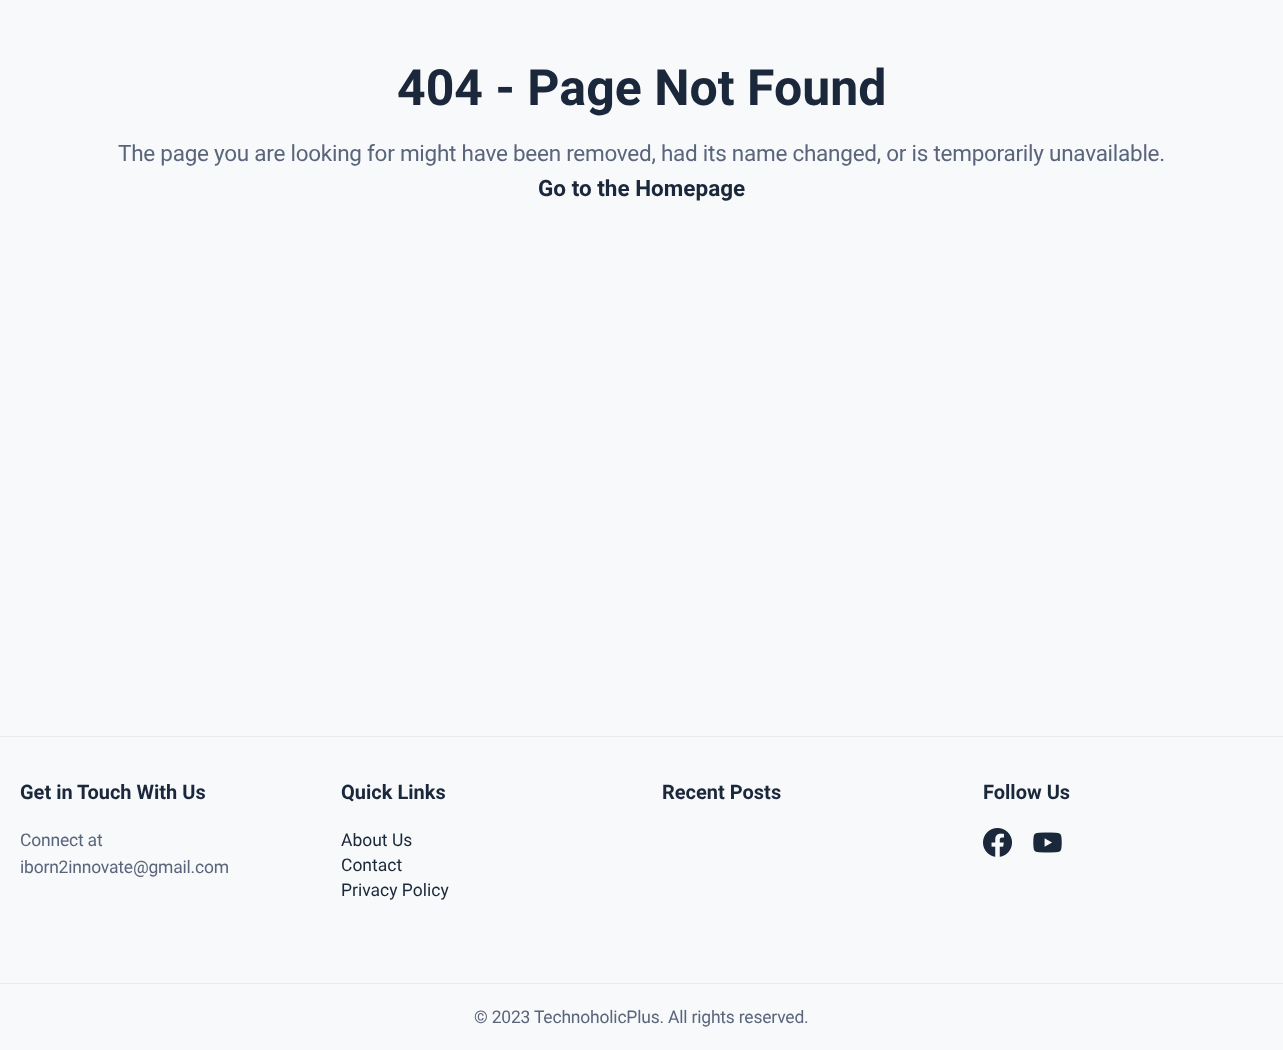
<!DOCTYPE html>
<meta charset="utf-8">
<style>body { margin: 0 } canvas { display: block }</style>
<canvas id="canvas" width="1283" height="1050"></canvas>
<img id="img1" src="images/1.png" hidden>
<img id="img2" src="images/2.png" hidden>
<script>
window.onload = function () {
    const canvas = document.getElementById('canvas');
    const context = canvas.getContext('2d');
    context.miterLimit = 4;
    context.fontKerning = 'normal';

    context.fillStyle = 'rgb(247, 249, 250)';
    context.fillRect(0, 0, 1283, 1050);
    context.fillStyle = 'rgb(231, 235, 238)';
    context.fillRect(0, 736, 1283, 1);
    context.drawImage(document.getElementById('img1'), 983, 828, 29, 29);
    context.drawImage(document.getElementById('img2'), 1033, 832, 29, 21);
    context.fillRect(0, 983, 1283, 1);
    context.font = 'bold 50px Roboto';
    context.fillStyle = 'rgb(27, 39, 58)';
    context.fillText('404 - Page Not Found', 397, 105);
    context.letterSpacing = '-0.25px';
    context.font = '22.5px Roboto';
    context.fillStyle = 'rgb(90, 101, 124)';
    context.fillText('The page you are looking for might have been removed, had its name changed, or is temporarily unavailable.', 118, 161);
    context.letterSpacing = '0px';
    context.font = 'bold 22.5px Roboto';
    context.fillStyle = 'rgb(27, 39, 58)';
    context.fillText('Go to the Homepage', 538, 196);
    context.font = 'bold 20px Roboto';
    context.fillText('Get in Touch With Us', 20, 799);
    context.letterSpacing = '-0.2px';
    context.font = '17.5px Roboto';
    context.fillStyle = 'rgb(90, 101, 124)';
    context.fillText('Connect at', 20, 846);
    context.fillText('iborn2innovate@gmail.com', 20, 873);
    context.letterSpacing = '0px';
    context.font = 'bold 20px Roboto';
    context.fillStyle = 'rgb(27, 39, 58)';
    context.fillText('Quick Links', 341, 799);
    context.font = '17.5px Roboto';
    context.fillText('About Us', 341, 846);
    context.fillText('Contact', 341, 871);
    context.fillText('Privacy Policy', 341, 896);
    context.font = 'bold 20px Roboto';
    context.fillText('Recent Posts', 662, 799);
    context.fillText('Follow Us', 983, 799);
    context.letterSpacing = '-0.2px';
    context.font = '17.5px Roboto';
    context.fillStyle = 'rgb(90, 101, 124)';
    context.fillText('© 2023 TechnoholicPlus. All rights reserved.', 474, 1023);
};
</script>
